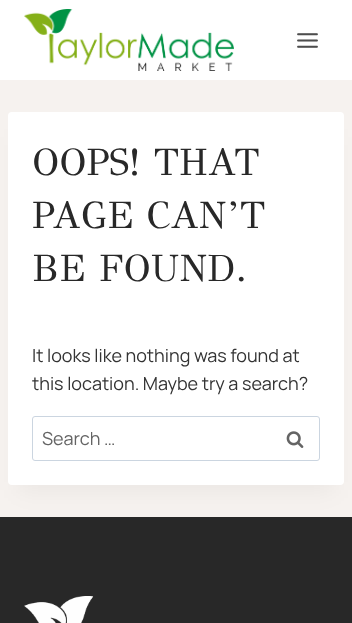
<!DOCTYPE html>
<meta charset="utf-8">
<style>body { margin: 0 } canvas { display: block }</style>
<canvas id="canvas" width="352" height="623"></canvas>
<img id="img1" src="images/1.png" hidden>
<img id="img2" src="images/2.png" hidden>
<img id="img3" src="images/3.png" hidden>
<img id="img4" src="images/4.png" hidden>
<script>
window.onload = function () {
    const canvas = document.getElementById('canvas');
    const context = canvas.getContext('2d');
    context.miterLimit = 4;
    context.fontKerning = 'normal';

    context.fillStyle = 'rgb(246, 242, 239)';
    context.fillRect(0, 0, 352, 623);
    context.fillStyle = 'rgb(255, 255, 255)';
    context.fillRect(0, 0, 352, 80);
    context.drawImage(document.getElementById('img1'), 24, 9, 210, 62);
    context.drawImage(document.getElementById('img2'), 297, 33, 21, 15);
    context.fillStyle = 'rgb(40, 40, 40)';
    context.fillRect(0, 517, 352, 106);
    context.fillStyle = 'rgba(0, 0, 0, 0.05)';
    context.filter = 'blur(12.5px)';
    context.beginPath();
    context.rect(18, 137, 316, 353);
    context.fill();
    context.filter = 'none';
    context.fillStyle = 'rgb(255, 255, 255)';
    context.beginPath();
    context.roundRect(8, 112, 336, 373, 4);
    context.fill();
    context.beginPath();
    context.roundRect(32.5, 416.5, 287, 44, 2.5);
    context.strokeStyle = 'rgb(203, 213, 224)';
    context.stroke();
    context.drawImage(document.getElementById('img3'), 286, 431, 18, 17);
    context.drawImage(document.getElementById('img4'), 24, 596, 70, 27);
    context.font = '38px GFS Didot';
    context.fillStyle = 'rgb(40, 40, 40)';
    context.fillText('OOPS! THAT', 32, 175);
    context.fillText('PAGE CAN’T', 32, 228);
    context.fillText('BE FOUND.', 32, 281);
    context.font = '18px Manrope';
    context.fillStyle = 'rgb(51, 51, 51)';
    context.fillText('It looks like nothing was found at', 32, 362);
    context.fillText('this location. Maybe try a search?', 32, 390);
    context.fillStyle = 'rgb(100, 100, 100)';
    context.fillText('Search …', 42, 445);
};
</script>
